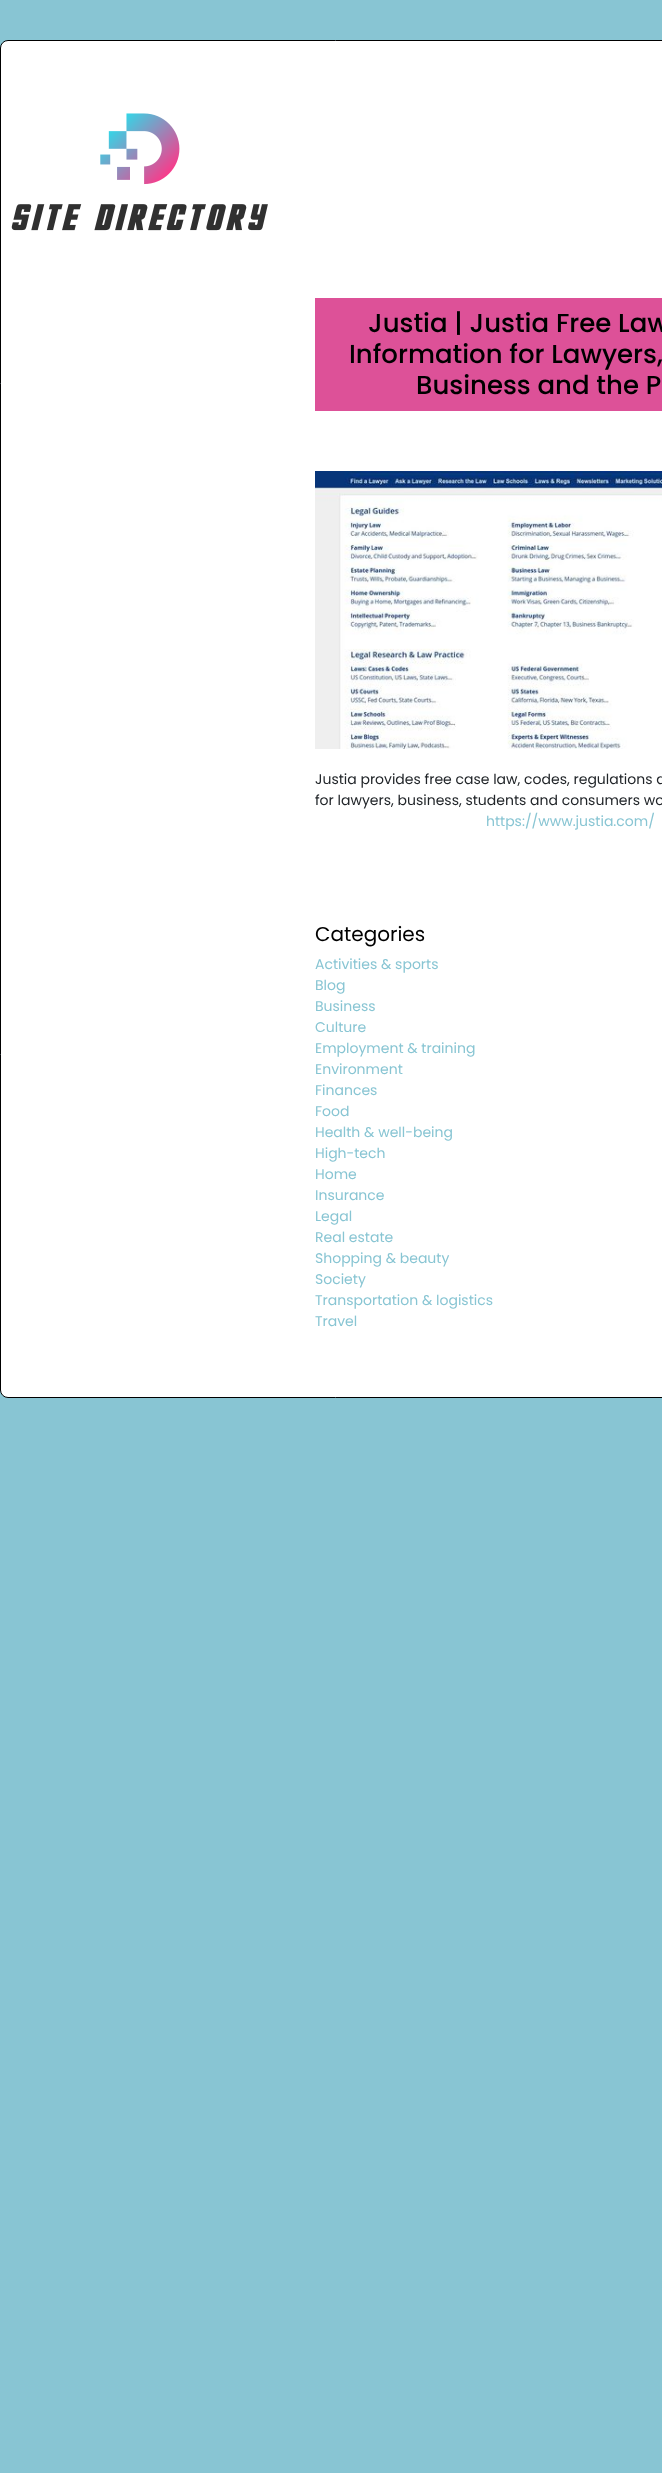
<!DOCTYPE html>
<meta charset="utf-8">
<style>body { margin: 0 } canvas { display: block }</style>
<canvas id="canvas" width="662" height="2473"></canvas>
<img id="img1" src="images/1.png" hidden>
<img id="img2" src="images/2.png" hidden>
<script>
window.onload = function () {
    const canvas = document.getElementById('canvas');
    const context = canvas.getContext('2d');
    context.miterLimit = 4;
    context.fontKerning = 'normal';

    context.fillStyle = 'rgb(136, 197, 211)';
    context.fillRect(0, 0, 662, 2473);
    context.fillStyle = 'rgb(255, 255, 255)';
    context.beginPath();
    context.roundRect(0.5, 40.5, 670, 1357, 7.5);
    context.fill();
    context.strokeStyle = 'rgb(0, 0, 0)';
    context.stroke();
    context.drawImage(document.getElementById('img1'), 11, 113, 257, 118);
    context.fillStyle = 'rgb(221, 81, 152)';
    context.fillRect(315, 298, 347, 113);
    context.drawImage(document.getElementById('img2'), 315, 471, 347, 278);
    context.font = '500 26px Poppins';
    context.fillStyle = 'rgb(0, 0, 0)';
    context.fillText('Justia | Justia Free Law', 368, 332);
    context.fillText('Information for Lawyers,', 349, 363);
    context.fillText('Business and the P', 416, 394);
    context.font = '14px Poppins';
    context.fillStyle = 'rgb(33, 37, 41)';
    context.fillText('Justia provides free case law, codes, regulations a', 315, 784);
    context.fillText('for lawyers, business, students and consumers wo', 315, 805);
    context.fillStyle = 'rgb(136, 197, 211)';
    context.fillText('https://www.justia.com/', 486, 826);
    context.font = '20px Poppins';
    context.fillStyle = 'rgb(0, 0, 0)';
    context.fillText('Categories', 315, 941);
    context.font = '14px Poppins';
    context.fillStyle = 'rgb(136, 197, 211)';
    context.fillText('Activities & sports', 315, 969);
    context.fillText('Blog', 315, 990);
    context.fillText('Business', 315, 1011);
    context.fillText('Culture', 315, 1032);
    context.fillText('Employment & training', 315, 1053);
    context.fillText('Environment', 315, 1074);
    context.fillText('Finances', 315, 1095);
    context.fillText('Food', 315, 1116);
    context.fillText('Health & well-being', 315, 1137);
    context.fillText('High-tech', 315, 1158);
    context.fillText('Home', 315, 1179);
    context.fillText('Insurance', 315, 1200);
    context.fillText('Legal', 315, 1221);
    context.fillText('Real estate', 315, 1242);
    context.fillText('Shopping & beauty', 315, 1263);
    context.fillText('Society', 315, 1284);
    context.fillText('Transportation & logistics', 315, 1305);
    context.fillText('Travel', 315, 1326);
};
</script>
